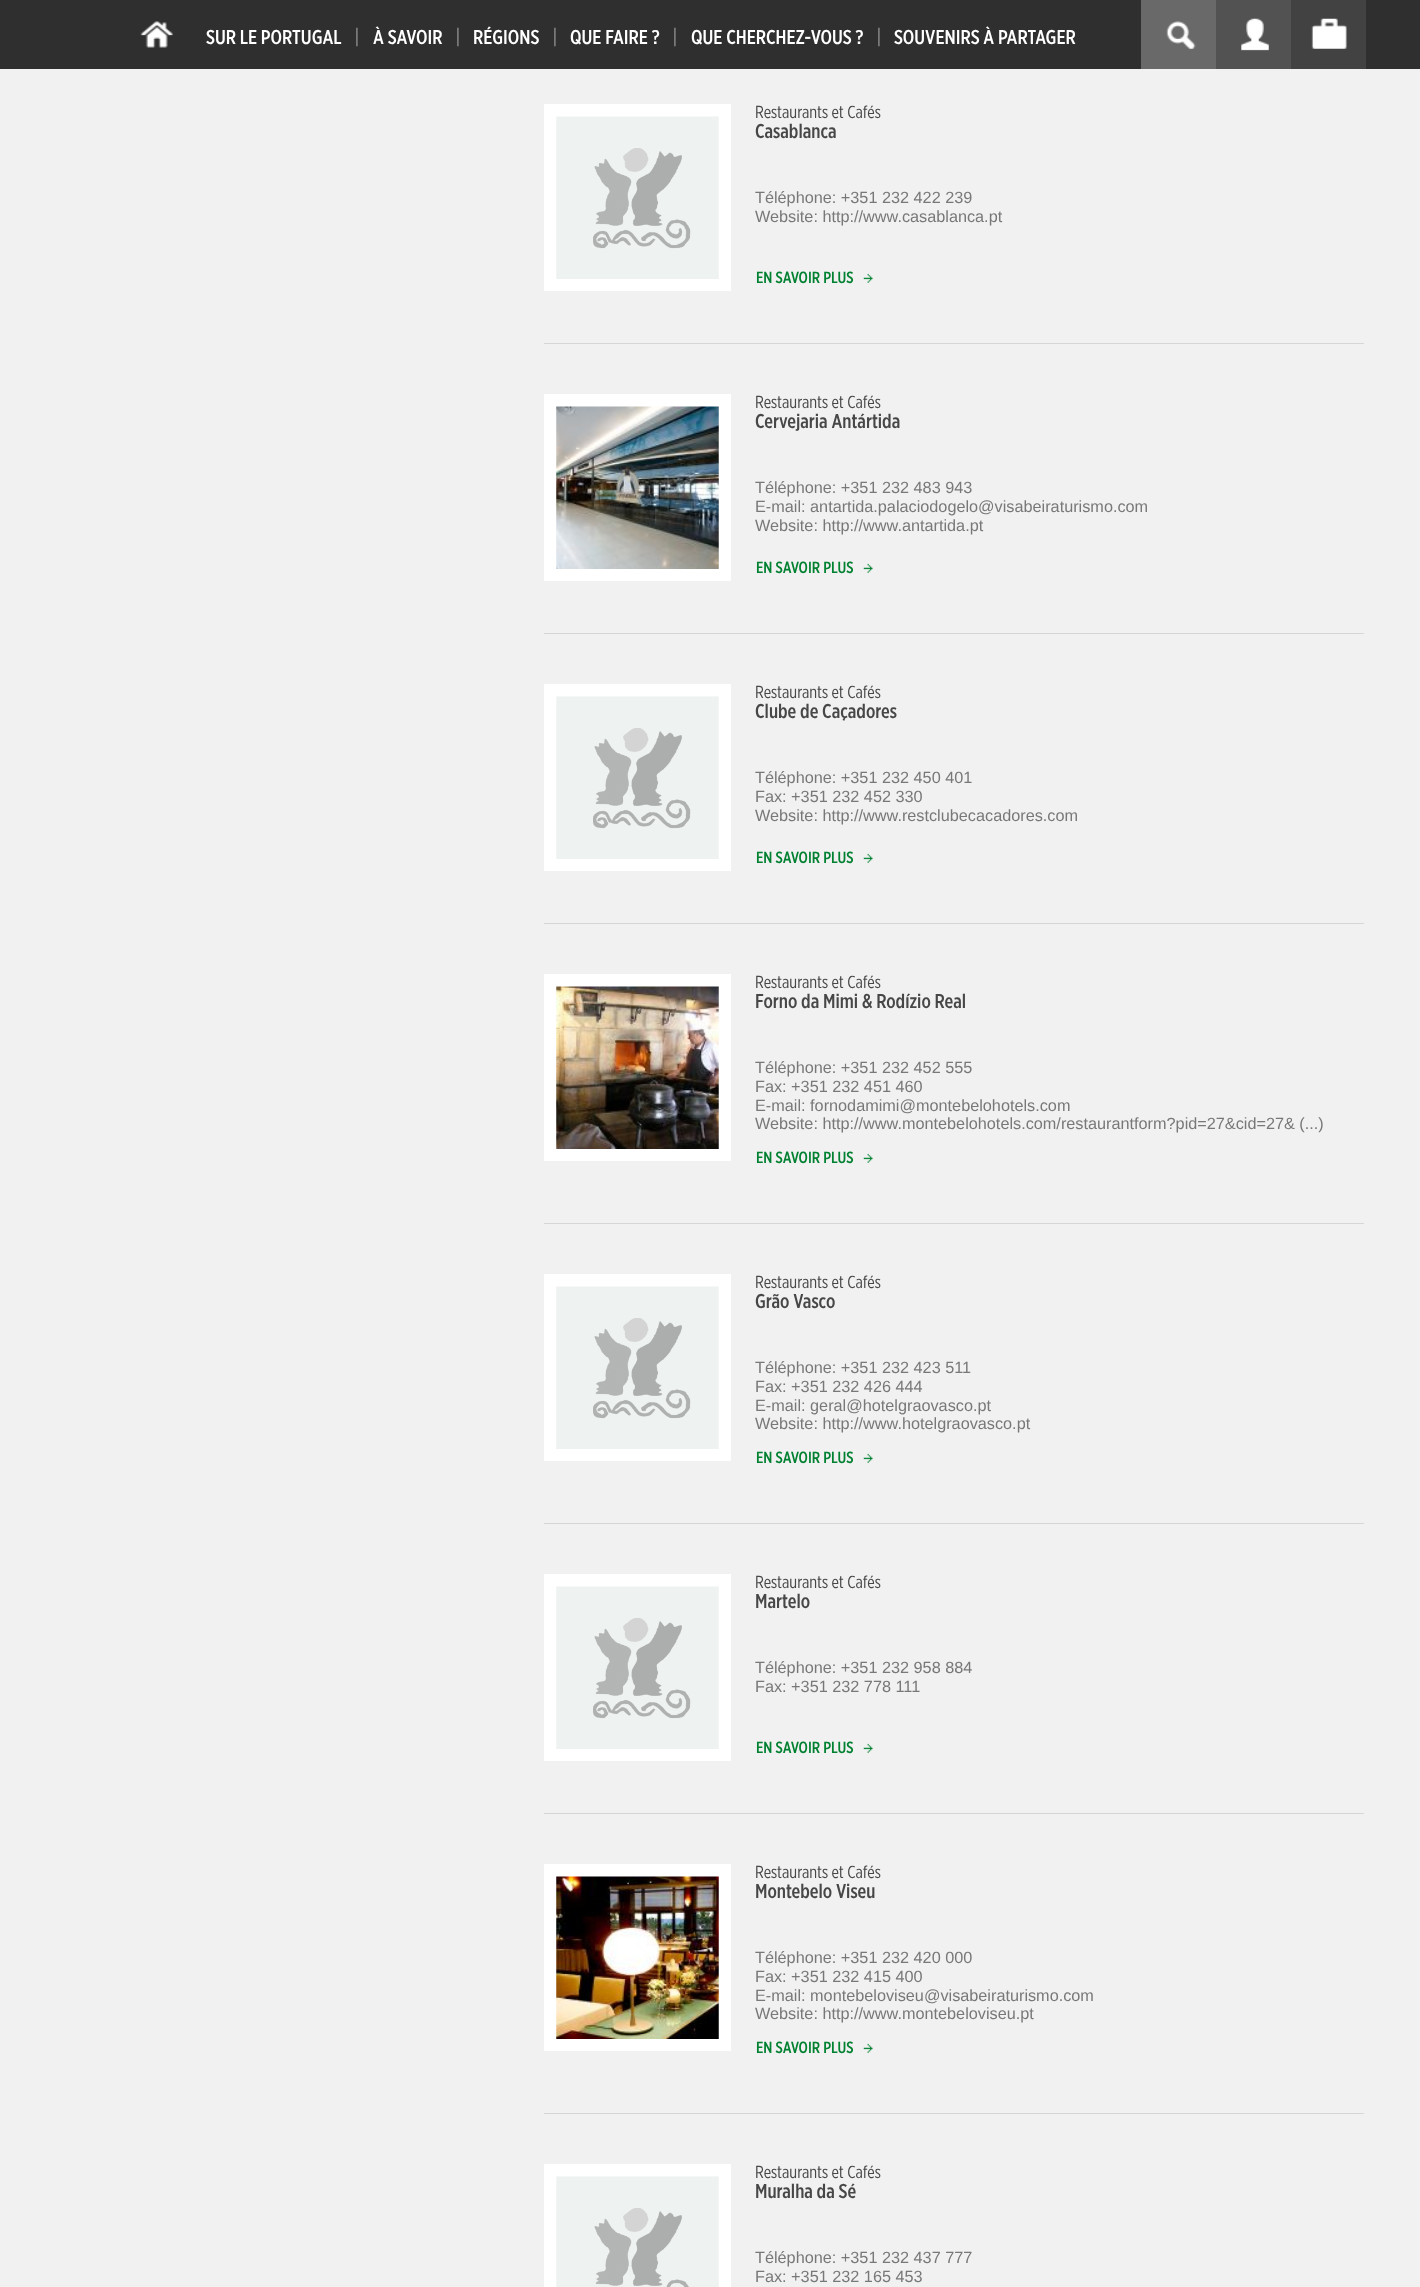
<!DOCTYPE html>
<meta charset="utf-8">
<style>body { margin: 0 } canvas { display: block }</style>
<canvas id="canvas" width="1420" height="2287"></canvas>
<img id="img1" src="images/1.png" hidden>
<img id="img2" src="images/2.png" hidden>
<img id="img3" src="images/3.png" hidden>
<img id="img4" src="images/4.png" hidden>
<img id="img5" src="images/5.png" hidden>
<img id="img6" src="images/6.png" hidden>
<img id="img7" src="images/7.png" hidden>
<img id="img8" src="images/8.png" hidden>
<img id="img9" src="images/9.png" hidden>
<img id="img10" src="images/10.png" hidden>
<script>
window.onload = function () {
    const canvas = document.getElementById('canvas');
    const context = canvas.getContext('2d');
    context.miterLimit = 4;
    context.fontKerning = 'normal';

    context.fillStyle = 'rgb(241, 241, 241)';
    context.fillRect(0, 0, 1420, 2287);
    context.fillStyle = 'rgb(47, 47, 47)';
    context.fillRect(0, 0, 1420, 69);
    context.drawImage(document.getElementById('img1'), 140, 21, 33, 27);
    context.fillStyle = 'rgb(105, 105, 105)';
    context.fillRect(1141, 0, 75, 69);
    context.drawImage(document.getElementById('img2'), 1166, 21, 30, 29);
    context.fillStyle = 'rgb(82, 82, 82)';
    context.fillRect(1216, 0, 75, 69);
    context.drawImage(document.getElementById('img3'), 1241, 18, 28, 33);
    context.fillStyle = 'rgb(66, 66, 66)';
    context.fillRect(1291, 0, 75, 69);
    context.drawImage(document.getElementById('img4'), 1311, 18, 36, 31);
    context.strokeStyle = 'rgb(255, 255, 255)';
    context.lineWidth = 13;
    context.strokeRect(550.5, 110.5, 174, 174);
    context.drawImage(document.getElementById('img5'), 556, 116, 163, 163);
    context.drawImage(document.getElementById('img6'), 863, 273, 10, 10);
    context.fillStyle = 'rgb(214, 214, 214)';
    context.fillRect(544, 343, 820, 1);
    context.strokeRect(550.5, 400.5, 174, 174);
    context.drawImage(document.getElementById('img7'), 556, 406, 163, 163);
    context.drawImage(document.getElementById('img6'), 863, 563, 10, 10);
    context.fillRect(544, 633, 820, 1);
    context.strokeRect(550.5, 690.5, 174, 174);
    context.drawImage(document.getElementById('img5'), 556, 696, 163, 163);
    context.drawImage(document.getElementById('img6'), 863, 853, 10, 10);
    context.fillRect(544, 923, 820, 1);
    context.strokeRect(550.5, 980.5, 174, 174);
    context.drawImage(document.getElementById('img8'), 556, 986, 163, 163);
    context.drawImage(document.getElementById('img6'), 863, 1153, 10, 10);
    context.fillRect(544, 1223, 820, 1);
    context.strokeRect(550.5, 1280.5, 174, 174);
    context.drawImage(document.getElementById('img5'), 556, 1286, 163, 163);
    context.drawImage(document.getElementById('img6'), 863, 1453, 10, 10);
    context.fillRect(544, 1523, 820, 1);
    context.strokeRect(550.5, 1580.5, 174, 174);
    context.drawImage(document.getElementById('img5'), 556, 1586, 163, 163);
    context.drawImage(document.getElementById('img6'), 863, 1743, 10, 10);
    context.fillRect(544, 1813, 820, 1);
    context.strokeRect(550.5, 1870.5, 174, 174);
    context.drawImage(document.getElementById('img9'), 556, 1876, 163, 163);
    context.drawImage(document.getElementById('img6'), 863, 2043, 10, 10);
    context.fillRect(544, 2113, 820, 1);
    context.strokeRect(550.5, 2170.5, 174, 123);
    context.drawImage(document.getElementById('img10'), 556, 2176, 163, 111);
    context.font = '500 20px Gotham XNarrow';
    context.fillStyle = 'rgb(255, 255, 255)';
    context.fillText('SUR LE PORTUGAL', 206, 44);
    context.font = '500 21px Gotham XNarrow';
    context.fillStyle = 'rgb(120, 120, 120)';
    context.fillText('|', 354, 44);
    context.font = '500 20px Gotham XNarrow';
    context.fillStyle = 'rgb(255, 255, 255)';
    context.fillText('À SAVOIR', 373, 44);
    context.font = '500 21px Gotham XNarrow';
    context.fillStyle = 'rgb(120, 120, 120)';
    context.fillText('|', 455, 44);
    context.font = '500 20px Gotham XNarrow';
    context.fillStyle = 'rgb(255, 255, 255)';
    context.fillText('RÉGIONS', 473, 44);
    context.font = '500 21px Gotham XNarrow';
    context.fillStyle = 'rgb(120, 120, 120)';
    context.fillText('|', 552, 44);
    context.font = '500 20px Gotham XNarrow';
    context.fillStyle = 'rgb(255, 255, 255)';
    context.fillText('QUE FAIRE ?', 570, 44);
    context.font = '500 21px Gotham XNarrow';
    context.fillStyle = 'rgb(120, 120, 120)';
    context.fillText('|', 672, 44);
    context.font = '500 20px Gotham XNarrow';
    context.fillStyle = 'rgb(255, 255, 255)';
    context.fillText('QUE CHERCHEZ-VOUS ?', 691, 44);
    context.font = '500 21px Gotham XNarrow';
    context.fillStyle = 'rgb(120, 120, 120)';
    context.fillText('|', 876, 44);
    context.font = '500 20px Gotham XNarrow';
    context.fillStyle = 'rgb(255, 255, 255)';
    context.fillText('SOUVENIRS À PARTAGER', 894, 44);
    context.font = '17.5px Gotham XNarrow';
    context.fillStyle = 'rgb(71, 71, 71)';
    context.fillText('Restaurants et Cafés', 755, 118);
    context.font = '500 20px Gotham XNarrow';
    context.fillText('Casablanca', 755, 138);
    context.font = '16.25px Liberation Sans';
    context.fillStyle = 'rgb(120, 120, 120)';
    context.fillText('Téléphone: +351 232 422 239', 755, 203);
    context.fillText('Website: http://www.casablanca.pt', 755, 222);
    context.font = '500 16.25px Gotham XNarrow';
    context.fillStyle = 'rgb(0, 129, 49)';
    context.fillText('EN SAVOIR PLUS', 756, 283);
    context.font = '17.5px Gotham XNarrow';
    context.fillStyle = 'rgb(71, 71, 71)';
    context.fillText('Restaurants et Cafés', 755, 408);
    context.font = '500 20px Gotham XNarrow';
    context.fillText('Cervejaria Antártida', 755, 428);
    context.font = '16.25px Liberation Sans';
    context.fillStyle = 'rgb(120, 120, 120)';
    context.fillText('Téléphone: +351 232 483 943', 755, 493);
    context.fillText('E-mail: antartida.palaciodogelo@visabeiraturismo.com', 755, 512);
    context.fillText('Website: http://www.antartida.pt', 755, 531);
    context.font = '500 16.25px Gotham XNarrow';
    context.fillStyle = 'rgb(0, 129, 49)';
    context.fillText('EN SAVOIR PLUS', 756, 573);
    context.font = '17.5px Gotham XNarrow';
    context.fillStyle = 'rgb(71, 71, 71)';
    context.fillText('Restaurants et Cafés', 755, 698);
    context.font = '500 20px Gotham XNarrow';
    context.fillText('Clube de Caçadores', 755, 718);
    context.font = '16.25px Liberation Sans';
    context.fillStyle = 'rgb(120, 120, 120)';
    context.fillText('Téléphone: +351 232 450 401', 755, 783);
    context.fillText('Fax: +351 232 452 330', 755, 802);
    context.fillText('Website: http://www.restclubecacadores.com', 755, 821);
    context.font = '500 16.25px Gotham XNarrow';
    context.fillStyle = 'rgb(0, 129, 49)';
    context.fillText('EN SAVOIR PLUS', 756, 863);
    context.font = '17.5px Gotham XNarrow';
    context.fillStyle = 'rgb(71, 71, 71)';
    context.fillText('Restaurants et Cafés', 755, 988);
    context.font = '500 20px Gotham XNarrow';
    context.fillText('Forno da Mimi & Rodízio Real', 755, 1008);
    context.font = '16.25px Liberation Sans';
    context.fillStyle = 'rgb(120, 120, 120)';
    context.fillText('Téléphone: +351 232 452 555', 755, 1073);
    context.fillText('Fax: +351 232 451 460', 755, 1092);
    context.fillText('E-mail: fornodamimi@montebelohotels.com', 755, 1111);
    context.fillText('Website: http://www.montebelohotels.com/restaurantform?pid=27&cid=27& (...)', 755, 1129);
    context.font = '500 16.25px Gotham XNarrow';
    context.fillStyle = 'rgb(0, 129, 49)';
    context.fillText('EN SAVOIR PLUS', 756, 1163);
    context.font = '17.5px Gotham XNarrow';
    context.fillStyle = 'rgb(71, 71, 71)';
    context.fillText('Restaurants et Cafés', 755, 1288);
    context.font = '500 20px Gotham XNarrow';
    context.fillText('Grão Vasco', 755, 1308);
    context.font = '16.25px Liberation Sans';
    context.fillStyle = 'rgb(120, 120, 120)';
    context.fillText('Téléphone: +351 232 423 511', 755, 1373);
    context.fillText('Fax: +351 232 426 444', 755, 1392);
    context.fillText('E-mail: geral@hotelgraovasco.pt', 755, 1411);
    context.fillText('Website: http://www.hotelgraovasco.pt', 755, 1429);
    context.font = '500 16.25px Gotham XNarrow';
    context.fillStyle = 'rgb(0, 129, 49)';
    context.fillText('EN SAVOIR PLUS', 756, 1463);
    context.font = '17.5px Gotham XNarrow';
    context.fillStyle = 'rgb(71, 71, 71)';
    context.fillText('Restaurants et Cafés', 755, 1588);
    context.font = '500 20px Gotham XNarrow';
    context.fillText('Martelo', 755, 1608);
    context.font = '16.25px Liberation Sans';
    context.fillStyle = 'rgb(120, 120, 120)';
    context.fillText('Téléphone: +351 232 958 884', 755, 1673);
    context.fillText('Fax: +351 232 778 111', 755, 1692);
    context.font = '500 16.25px Gotham XNarrow';
    context.fillStyle = 'rgb(0, 129, 49)';
    context.fillText('EN SAVOIR PLUS', 756, 1753);
    context.font = '17.5px Gotham XNarrow';
    context.fillStyle = 'rgb(71, 71, 71)';
    context.fillText('Restaurants et Cafés', 755, 1878);
    context.font = '500 20px Gotham XNarrow';
    context.fillText('Montebelo Viseu', 755, 1898);
    context.font = '16.25px Liberation Sans';
    context.fillStyle = 'rgb(120, 120, 120)';
    context.fillText('Téléphone: +351 232 420 000', 755, 1963);
    context.fillText('Fax: +351 232 415 400', 755, 1982);
    context.fillText('E-mail: montebeloviseu@visabeiraturismo.com', 755, 2001);
    context.fillText('Website: http://www.montebeloviseu.pt', 755, 2019);
    context.font = '500 16.25px Gotham XNarrow';
    context.fillStyle = 'rgb(0, 129, 49)';
    context.fillText('EN SAVOIR PLUS', 756, 2053);
    context.font = '17.5px Gotham XNarrow';
    context.fillStyle = 'rgb(71, 71, 71)';
    context.fillText('Restaurants et Cafés', 755, 2178);
    context.font = '500 20px Gotham XNarrow';
    context.fillText('Muralha da Sé', 755, 2198);
    context.font = '16.25px Liberation Sans';
    context.fillStyle = 'rgb(120, 120, 120)';
    context.fillText('Téléphone: +351 232 437 777', 755, 2263);
    context.fillText('Fax: +351 232 165 453', 755, 2282);
};
</script>
